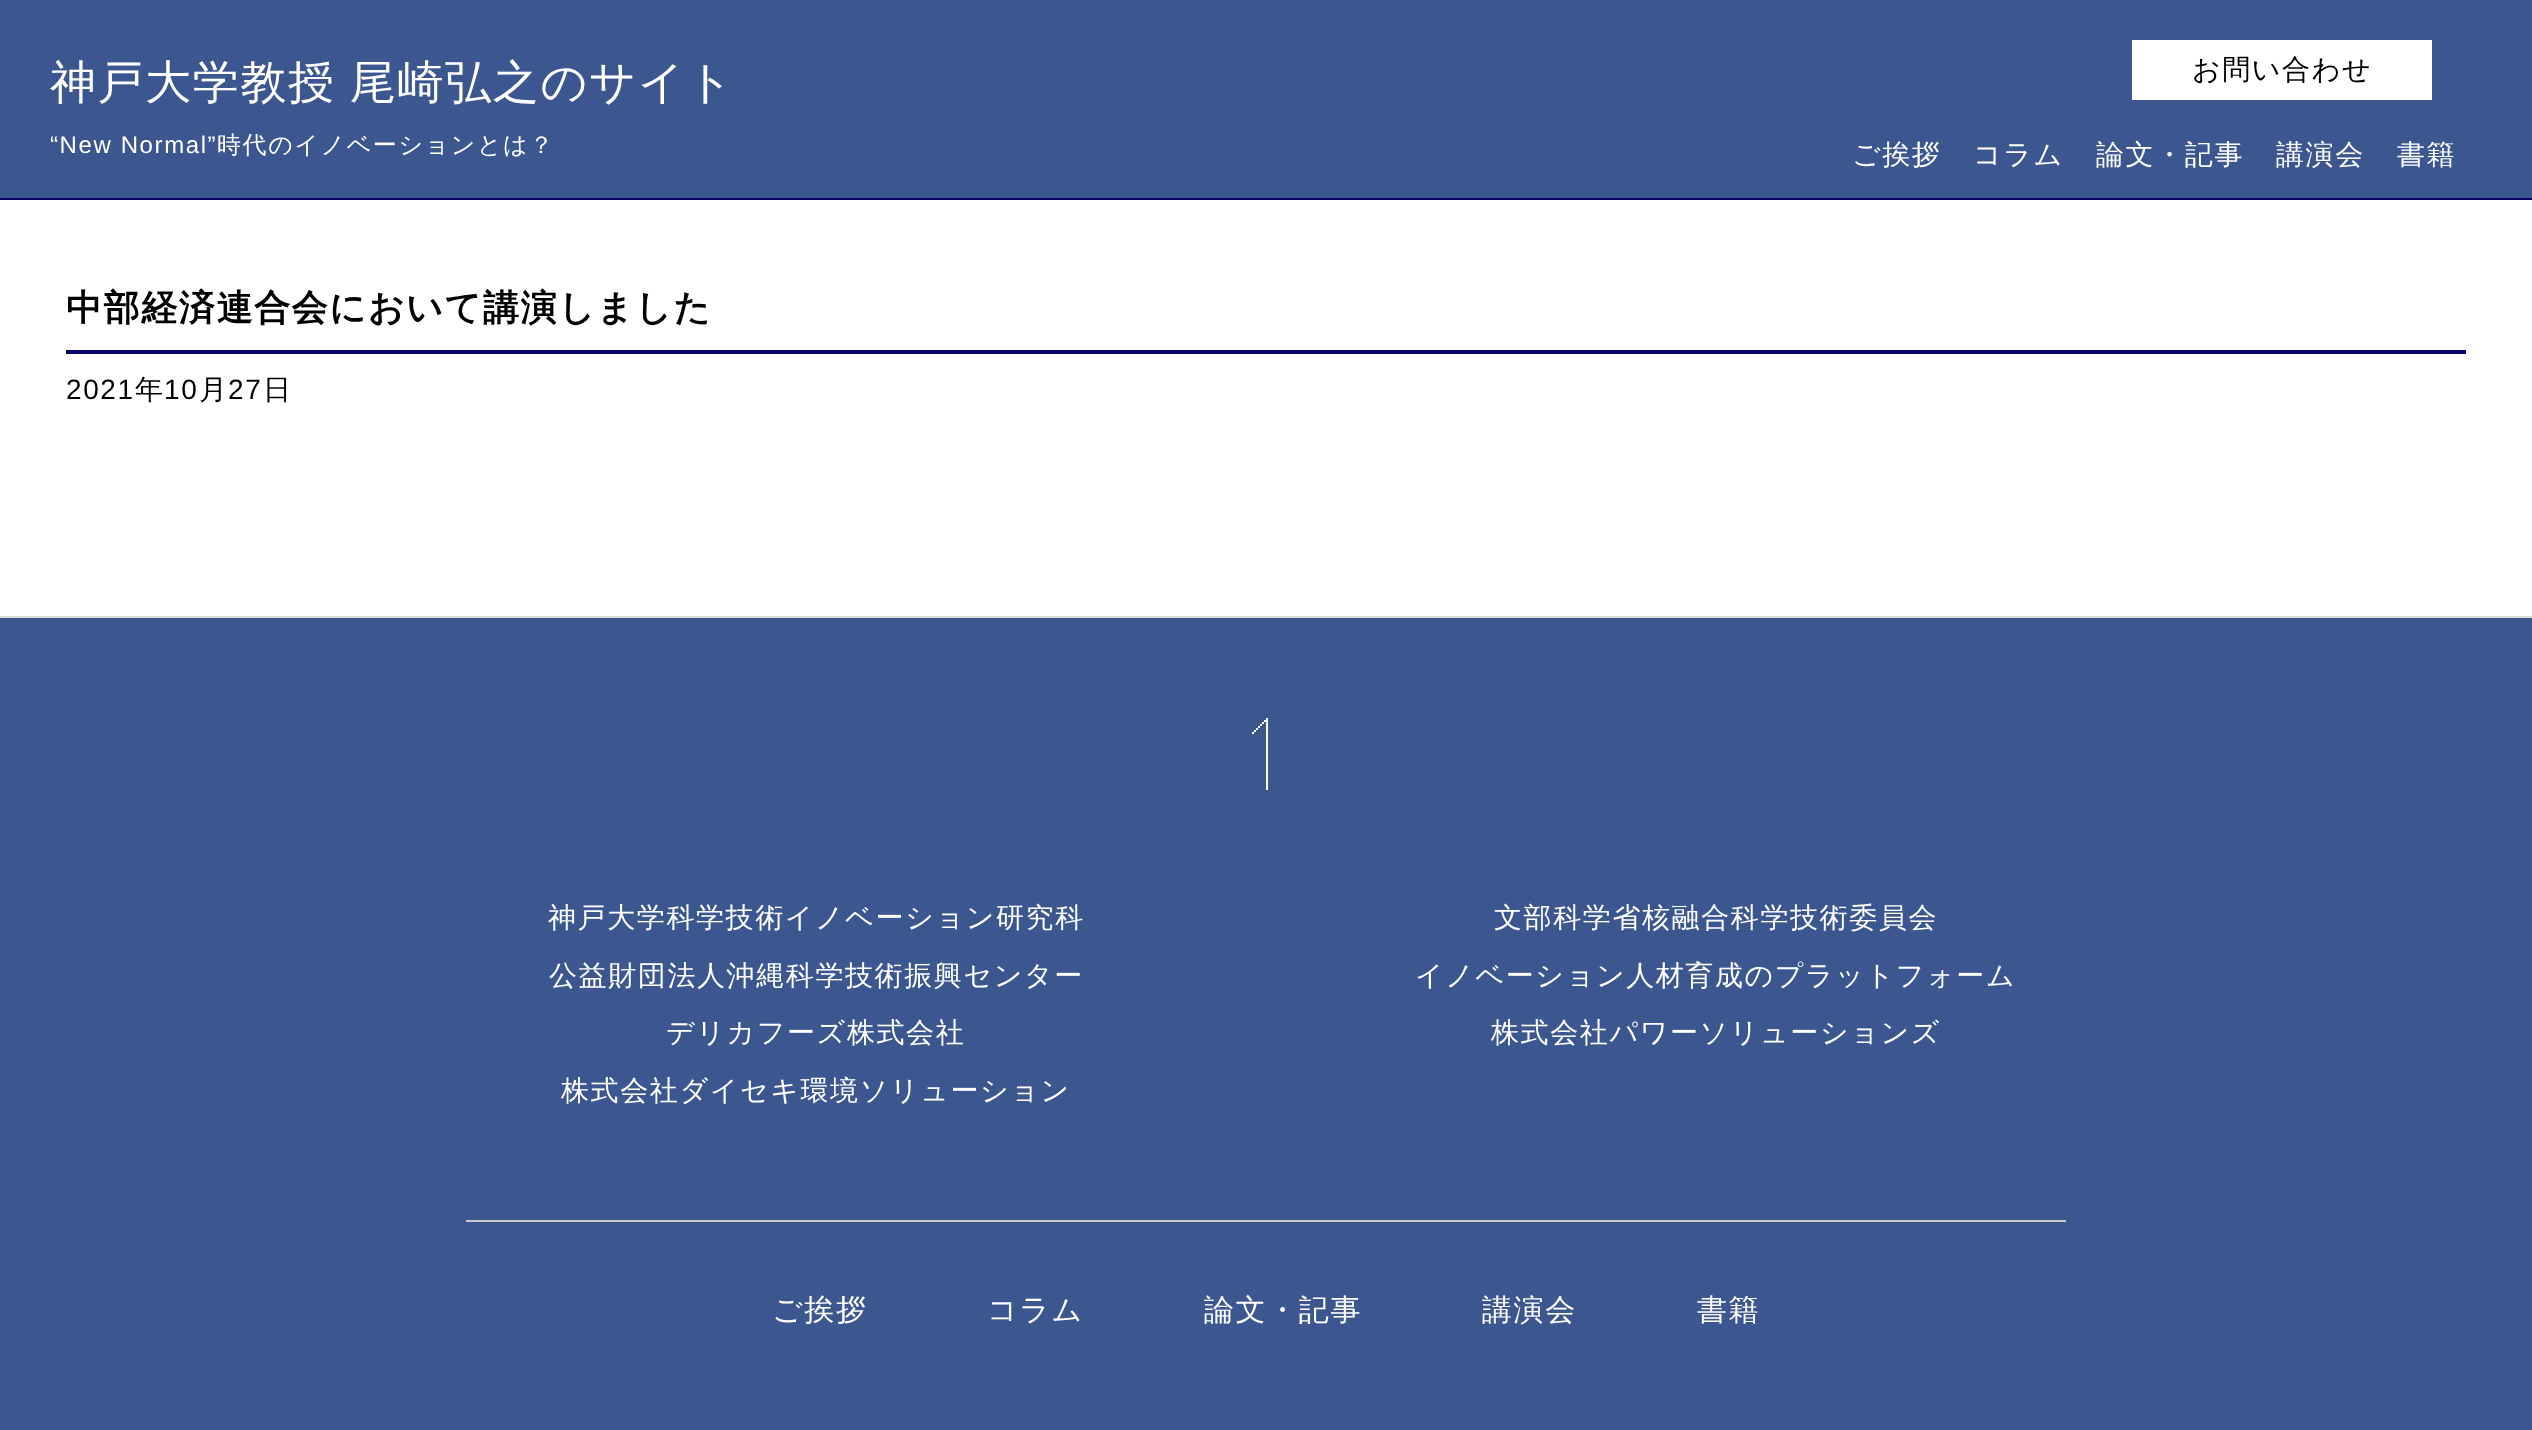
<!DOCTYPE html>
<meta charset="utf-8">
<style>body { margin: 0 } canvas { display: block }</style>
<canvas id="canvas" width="2532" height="1430"></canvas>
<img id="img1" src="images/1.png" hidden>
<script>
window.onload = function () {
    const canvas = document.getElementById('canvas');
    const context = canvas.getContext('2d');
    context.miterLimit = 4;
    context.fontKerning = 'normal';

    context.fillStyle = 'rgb(255, 255, 255)';
    context.fillRect(0, 0, 2532, 1430);
    context.fillStyle = 'rgb(60, 86, 144)';
    context.fillRect(0, 0, 2532, 198);
    context.fillStyle = 'rgb(6, 0, 101)';
    context.fillRect(0, 198, 2532, 2);
    context.fillStyle = 'rgb(255, 255, 255)';
    context.fillRect(2132, 40, 300, 60);
    context.fillStyle = 'rgb(6, 0, 101)';
    context.fillRect(66, 350, 2400, 4);
    context.fillStyle = 'rgb(60, 86, 144)';
    context.fillRect(0, 618, 2532, 812);
    context.fillStyle = 'rgb(221, 221, 221)';
    context.fillRect(0, 616, 2532, 2);
    context.drawImage(document.getElementById('img1'), 1252, 718, 17, 72);
    context.fillStyle = 'rgb(204, 204, 204)';
    context.fillRect(466, 1220, 1600, 2);
    context.letterSpacing = '1.6px';
    context.wordSpacing = '-1px';
    context.font = '500 46px WenQuanYi Zen Hei';
    context.fillStyle = 'rgb(255, 255, 255)';
    context.fillText('神戸大学教授 尾崎弘之のサイト', 50, 98);
    context.wordSpacing = '0px';
    context.font = '24px Liberation Sans';
    context.fillText('“New Normal”', 50, 153);
    context.font = '500 24px WenQuanYi Zen Hei';
    context.fillText('時代のイノベーションとは？', 217, 153);
    context.font = '500 28px WenQuanYi Zen Hei';
    context.fillStyle = 'rgb(0, 0, 0)';
    context.fillText('お問い合わせ', 2192, 79);
    context.fillStyle = 'rgb(255, 255, 255)';
    context.fillText('ご挨拶', 1852, 164);
    context.fillText('コラム', 1973, 164);
    context.fillText('論文・記事', 2096, 164);
    context.fillText('講演会', 2276, 164);
    context.fillText('書籍', 2397, 164);
    context.font = 'bold 36px WenQuanYi Zen Hei';
    context.fillStyle = 'rgb(0, 0, 0)';
    context.fillText('中部経済連合会において講演しました', 66, 320);
    context.font = '28px Liberation Sans';
    context.fillText('2021', 66, 399);
    context.font = '500 28px WenQuanYi Zen Hei';
    context.fillText('年', 135, 399);
    context.font = '28px Liberation Sans';
    context.fillText('10', 164, 399);
    context.font = '500 28px WenQuanYi Zen Hei';
    context.fillText('月', 199, 399);
    context.font = '28px Liberation Sans';
    context.fillText('27', 228, 399);
    context.font = '500 28px WenQuanYi Zen Hei';
    context.fillText('日', 263, 399);
    context.fillStyle = 'rgb(255, 255, 255)';
    context.fillText('神戸大学科学技術イノベーション研究科', 548, 927);
    context.fillText('文部科学省核融合科学技術委員会', 1494, 927);
    context.fillText('公益財団法人沖縄科学技術振興センター', 549, 985);
    context.fillText('イノベーション人材育成のプラットフォーム', 1415, 985);
    context.fillText('デリカフーズ株式会社', 666, 1042);
    context.fillText('株式会社パワーソリューションズ', 1491, 1042);
    context.fillText('株式会社ダイセキ環境ソリューション', 561, 1100);
    context.font = '500 30px WenQuanYi Zen Hei';
    context.fillText('ご挨拶', 772, 1320);
    context.fillText('コラム', 987, 1320);
    context.fillText('論文・記事', 1204, 1320);
    context.fillText('講演会', 1482, 1320);
    context.fillText('書籍', 1697, 1320);
};
</script>
